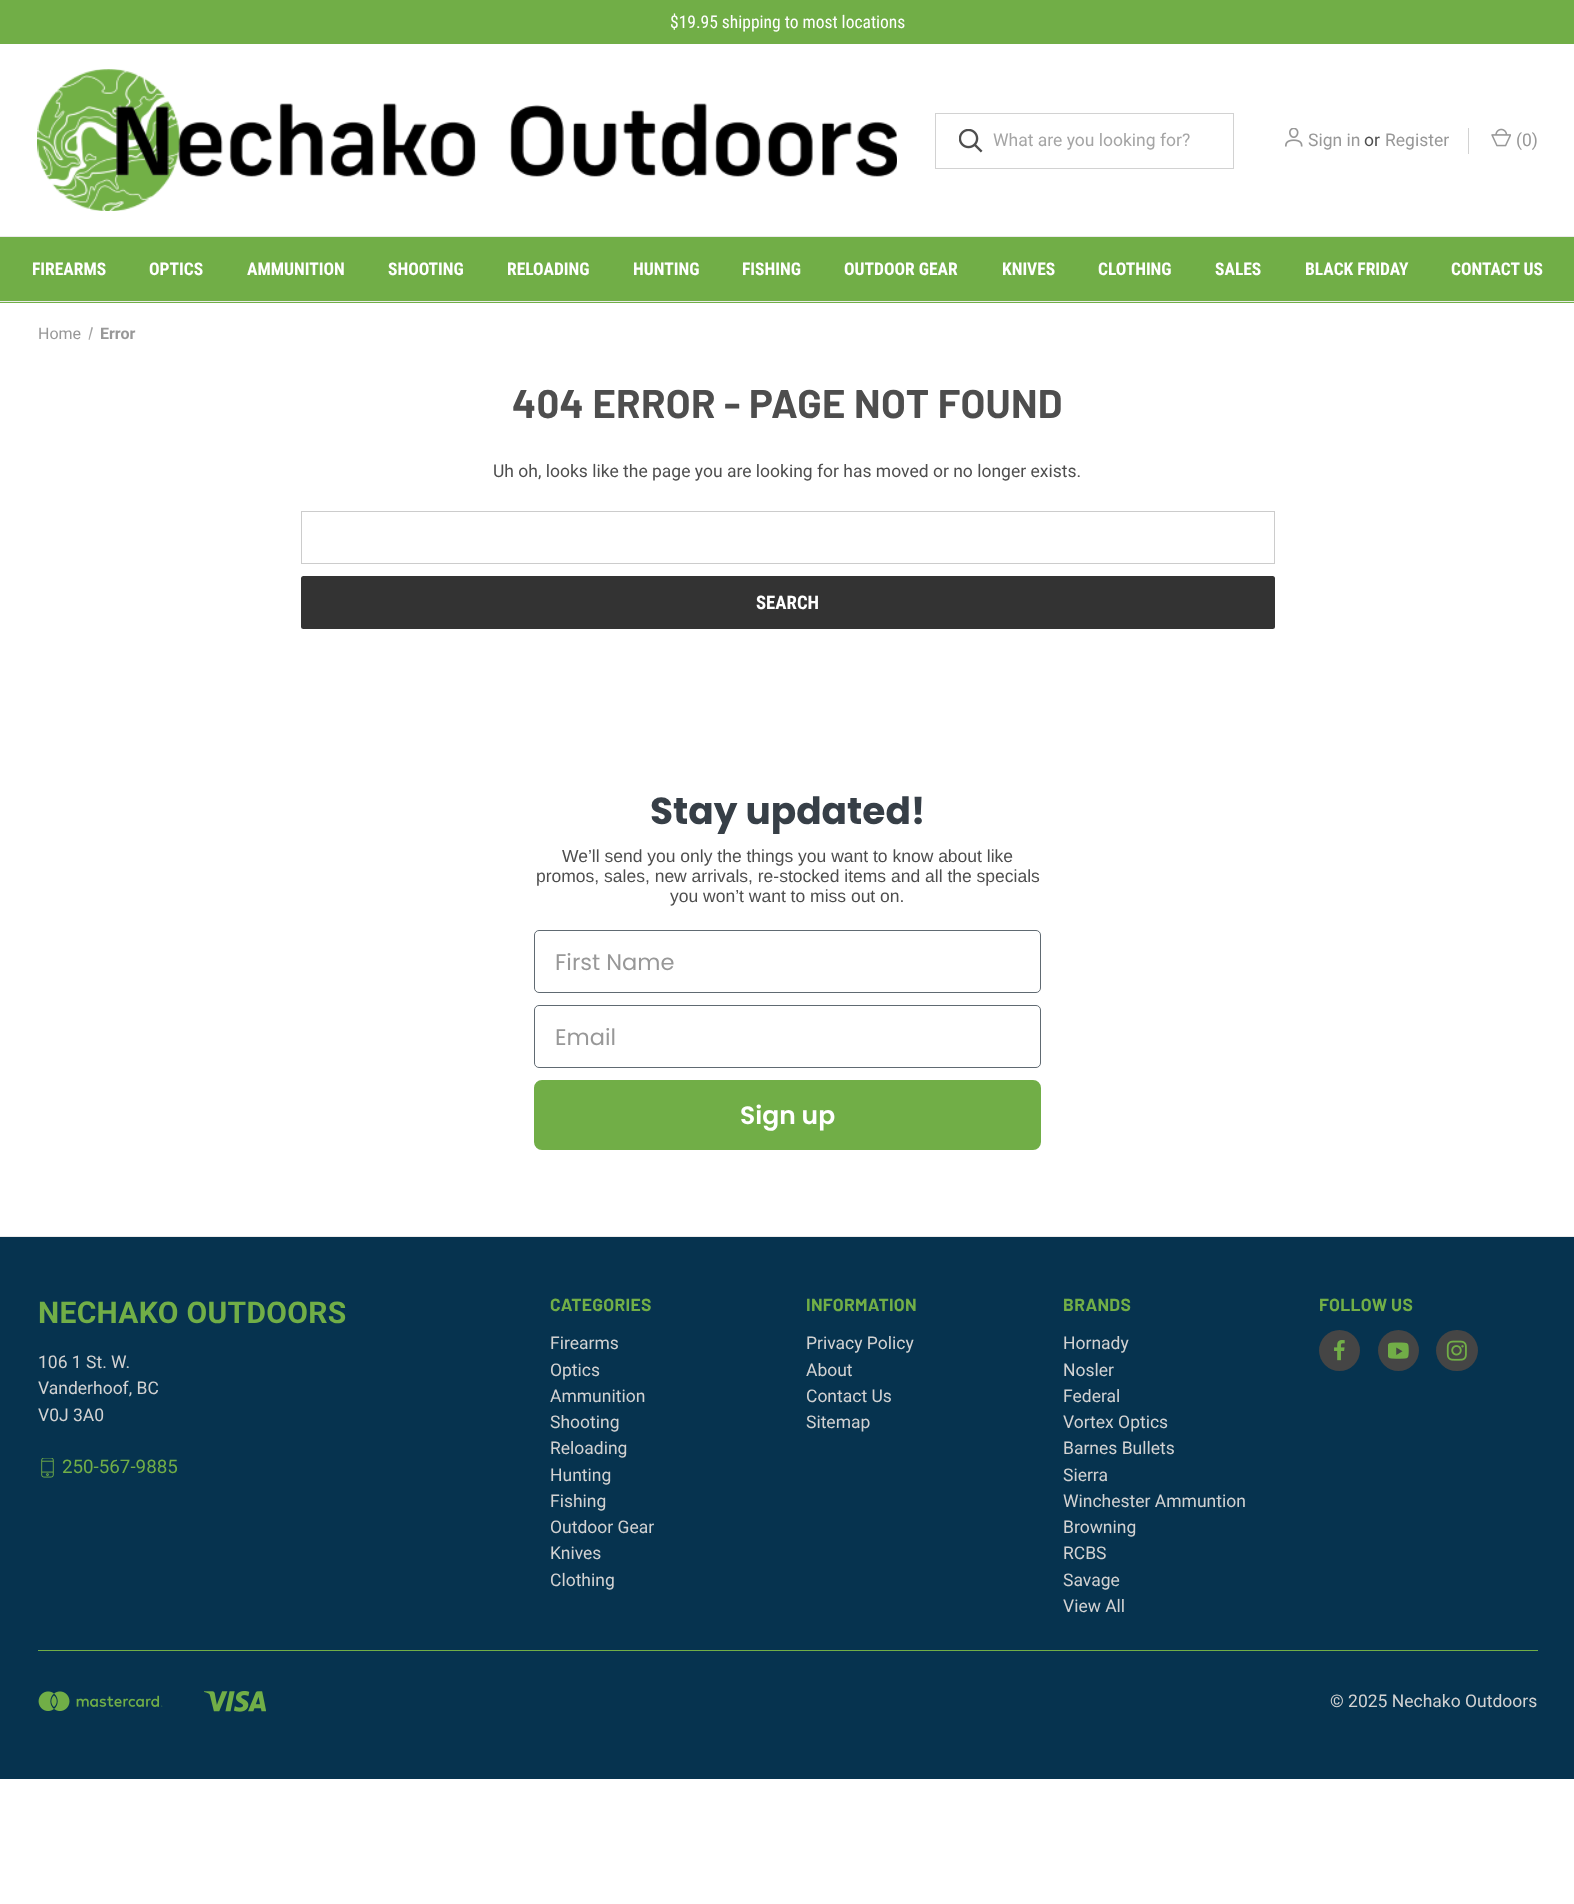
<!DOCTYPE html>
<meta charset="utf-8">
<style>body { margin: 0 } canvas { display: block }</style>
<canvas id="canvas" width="1574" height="1904"></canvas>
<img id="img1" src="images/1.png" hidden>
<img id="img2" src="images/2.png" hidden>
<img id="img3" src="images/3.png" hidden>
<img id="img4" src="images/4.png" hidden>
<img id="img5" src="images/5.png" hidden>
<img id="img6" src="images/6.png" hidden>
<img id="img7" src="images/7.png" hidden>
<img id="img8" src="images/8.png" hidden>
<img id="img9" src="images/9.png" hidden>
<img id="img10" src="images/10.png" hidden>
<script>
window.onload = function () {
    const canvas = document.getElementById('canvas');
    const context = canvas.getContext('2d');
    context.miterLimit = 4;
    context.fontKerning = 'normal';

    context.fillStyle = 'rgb(255, 255, 255)';
    context.fillRect(0, 0, 1574, 1904);
    context.fillStyle = 'rgb(113, 174, 71)';
    context.fillRect(0, 0, 1574, 44);
    context.drawImage(document.getElementById('img1'), 37, 69, 860, 142);
    context.strokeStyle = 'rgb(210, 210, 210)';
    context.strokeRect(935.5, 113.5, 298, 55);
    context.drawImage(document.getElementById('img2'), 959, 129, 24, 24);
    context.drawImage(document.getElementById('img3'), 1285, 128, 18, 19);
    context.fillStyle = 'rgb(210, 210, 210)';
    context.fillRect(1468, 128, 1, 26);
    context.drawImage(document.getElementById('img4'), 1491, 128, 20, 19);
    context.fillStyle = 'rgb(113, 174, 71)';
    context.fillRect(0, 237, 1574, 66);
    context.fillStyle = 'rgb(235, 235, 235)';
    context.fillRect(0, 236, 1574, 1);
    context.fillRect(0, 301, 1574, 1);
    context.fillStyle = 'rgb(163, 163, 163)';
    context.beginPath();
    context.moveTo(91.5, 327);
    context.lineTo(93, 327.5);
    context.lineTo(89.5, 340);
    context.lineTo(88.5, 339.5);
    context.closePath();
    context.fill();
    context.strokeStyle = 'rgb(204, 204, 204)';
    context.strokeRect(301.5, 511.5, 973, 52);
    context.fillStyle = 'rgb(51, 51, 51)';
    context.beginPath();
    context.roundRect(301, 576, 974, 53, 2.5);
    context.fill();
    context.beginPath();
    context.roundRect(534.5, 930.5, 506, 62, 4.5);
    context.strokeStyle = 'rgb(96, 106, 114)';
    context.stroke();
    context.beginPath();
    context.roundRect(534.5, 1005.5, 506, 62, 4.5);
    context.stroke();
    context.fillStyle = 'rgb(113, 174, 71)';
    context.beginPath();
    context.roundRect(535.5, 1081.5, 504, 67, 6.5);
    context.fill();
    context.strokeStyle = 'rgb(113, 174, 71)';
    context.lineWidth = 3;
    context.stroke();
    context.fillStyle = 'rgb(6, 51, 79)';
    context.fillRect(0, 1237, 1574, 542);
    context.fillStyle = 'rgb(235, 235, 235)';
    context.fillRect(0, 1236, 1574, 1);
    context.drawImage(document.getElementById('img5'), 41, 1458, 13, 20);
    context.fillStyle = 'rgb(69, 69, 69)';
    context.beginPath();
    context.arc(1339.5, 1350.5, 20.5, 0, 2 * Math.PI);
    context.fill();
    context.drawImage(document.getElementById('img6'), 1334, 1340, 11, 21);
    context.beginPath();
    context.arc(1398.5, 1350.5, 20.5, 0, 2 * Math.PI);
    context.fill();
    context.drawImage(document.getElementById('img7'), 1388, 1342, 21, 17);
    context.beginPath();
    context.roundRect(1436, 1330, 42, 41, 20.5);
    context.fill();
    context.drawImage(document.getElementById('img8'), 1446, 1340, 21, 21);
    context.fillStyle = 'rgb(113, 174, 71)';
    context.fillRect(38, 1650, 1500, 1);
    context.drawImage(document.getElementById('img9'), 38, 1691, 125, 20);
    context.drawImage(document.getElementById('img10'), 204, 1691, 62, 21);
    context.font = '17.5px Roboto Condensed';
    context.fillStyle = 'rgb(255, 255, 255)';
    context.fillText('$19.95 shipping to most locations', 670, 28);
    context.font = '17.5px Roboto';
    context.fillStyle = 'rgb(165, 165, 165)';
    context.fillText('What are you looking for?', 993, 146);
    context.fillStyle = 'rgb(152, 152, 152)';
    context.fillText('Sign in', 1308, 146);
    context.fillStyle = 'rgb(78, 78, 78)';
    context.fillText('or', 1364, 146);
    context.fillStyle = 'rgb(152, 152, 152)';
    context.fillText('Register', 1385, 146);
    context.fillText('(0)', 1516, 146);
    context.font = 'bold 17.5px Roboto Condensed';
    context.fillStyle = 'rgb(255, 255, 255)';
    context.fillText('FIREARMS', 32, 275);
    context.fillText('OPTICS', 149, 275);
    context.fillText('AMMUNITION', 247, 275);
    context.fillText('SHOOTING', 388, 275);
    context.fillText('RELOADING', 507, 275);
    context.fillText('HUNTING', 633, 275);
    context.fillText('FISHING', 742, 275);
    context.fillText('OUTDOOR GEAR', 844, 275);
    context.fillText('KNIVES', 1002, 275);
    context.fillText('CLOTHING', 1098, 275);
    context.fillText('SALES', 1215, 275);
    context.fillText('BLACK FRIDAY', 1305, 275);
    context.fillText('CONTACT US', 1451, 275);
    context.font = '16px Roboto';
    context.fillStyle = 'rgb(152, 152, 152)';
    context.fillText('Home', 38, 339);
    context.font = 'bold 16px Roboto';
    context.fillText('Error', 100, 339);
    context.letterSpacing = '0.3px';
    context.font = 'bold 40px Barlow';
    context.fillStyle = 'rgb(78, 78, 78)';
    context.fillText('404 ERROR - PAGE NOT FOUND', 512, 418);
    context.letterSpacing = '0px';
    context.font = '17.5px Roboto';
    context.fillText('Uh oh, looks like the page you are looking for has moved or no longer exists.', 493, 477);
    context.font = 'bold 18.75px Roboto Condensed';
    context.fillStyle = 'rgb(255, 255, 255)';
    context.fillText('SEARCH', 756, 609);
    context.font = 'bold 37.5px Poppins';
    context.fillStyle = 'rgb(55, 63, 71)';
    context.fillText('Stay updated!', 650, 824);
    context.font = '17.5px Liberation Sans';
    context.fillStyle = 'rgb(78, 78, 78)';
    context.fillText('We’ll send you only the things you want to know about like', 562, 862);
    context.fillText('promos, sales, new arrivals, re-stocked items and all the specials', 536, 882);
    context.fillText('you won’t want to miss out on.', 670, 902);
    context.font = '22.5px Poppins';
    context.fillStyle = 'rgb(152, 152, 152)';
    context.fillText('First Name', 555, 970);
    context.fillText('Email', 555, 1045);
    context.font = '600 25px Poppins';
    context.fillStyle = 'rgb(255, 255, 255)';
    context.fillText('Sign up', 740, 1124);
    context.letterSpacing = '0.3px';
    context.font = 'bold 30px Roboto';
    context.fillStyle = 'rgb(113, 174, 71)';
    context.fillText('NECHAKO OUTDOORS', 38, 1323);
    context.letterSpacing = '0px';
    context.font = '17.5px Roboto';
    context.fillStyle = 'rgb(210, 210, 210)';
    context.fillText('106 1 St. W.', 38, 1368);
    context.fillText('Vanderhoof, BC', 38, 1394);
    context.fillText('V0J 3A0', 38, 1421);
    context.font = '18.75px Roboto';
    context.fillStyle = 'rgb(113, 174, 71)';
    context.fillText('250-567-9885', 62, 1473);
    context.letterSpacing = '0.3px';
    context.font = 'bold 17.5px Barlow';
    context.fillText('CATEGORIES', 550, 1311);
    context.letterSpacing = '0px';
    context.font = '17.5px Roboto';
    context.fillStyle = 'rgb(210, 210, 210)';
    context.fillText('Firearms', 550, 1349);
    context.fillText('Optics', 550, 1376);
    context.fillText('Ammunition', 550, 1402);
    context.fillText('Shooting', 550, 1428);
    context.fillText('Reloading', 550, 1454);
    context.fillText('Hunting', 550, 1481);
    context.fillText('Fishing', 550, 1507);
    context.fillText('Outdoor Gear', 550, 1533);
    context.fillText('Knives', 550, 1559);
    context.fillText('Clothing', 550, 1586);
    context.letterSpacing = '0.3px';
    context.font = 'bold 17.5px Barlow';
    context.fillStyle = 'rgb(113, 174, 71)';
    context.fillText('INFORMATION', 806, 1311);
    context.letterSpacing = '0px';
    context.font = '17.5px Roboto';
    context.fillStyle = 'rgb(210, 210, 210)';
    context.fillText('Privacy Policy', 806, 1349);
    context.fillText('About', 806, 1376);
    context.fillText('Contact Us', 806, 1402);
    context.fillText('Sitemap', 806, 1428);
    context.letterSpacing = '0.3px';
    context.font = 'bold 17.5px Barlow';
    context.fillStyle = 'rgb(113, 174, 71)';
    context.fillText('BRANDS', 1063, 1311);
    context.letterSpacing = '0px';
    context.font = '17.5px Roboto';
    context.fillStyle = 'rgb(210, 210, 210)';
    context.fillText('Hornady', 1063, 1349);
    context.fillText('Nosler', 1063, 1376);
    context.fillText('Federal', 1063, 1402);
    context.fillText('Vortex Optics', 1063, 1428);
    context.fillText('Barnes Bullets', 1063, 1454);
    context.fillText('Sierra', 1063, 1481);
    context.fillText('Winchester Ammuntion', 1063, 1507);
    context.fillText('Browning', 1063, 1533);
    context.fillText('RCBS', 1063, 1559);
    context.fillText('Savage', 1063, 1586);
    context.fillText('View All', 1063, 1612);
    context.letterSpacing = '0.3px';
    context.font = 'bold 17.5px Barlow';
    context.fillStyle = 'rgb(113, 174, 71)';
    context.fillText('FOLLOW US', 1319, 1311);
    context.letterSpacing = '0px';
    context.font = '17.5px Roboto';
    context.fillStyle = 'rgb(210, 210, 210)';
    context.fillText('© 2025 Nechako Outdoors', 1330, 1707);
};
</script>
